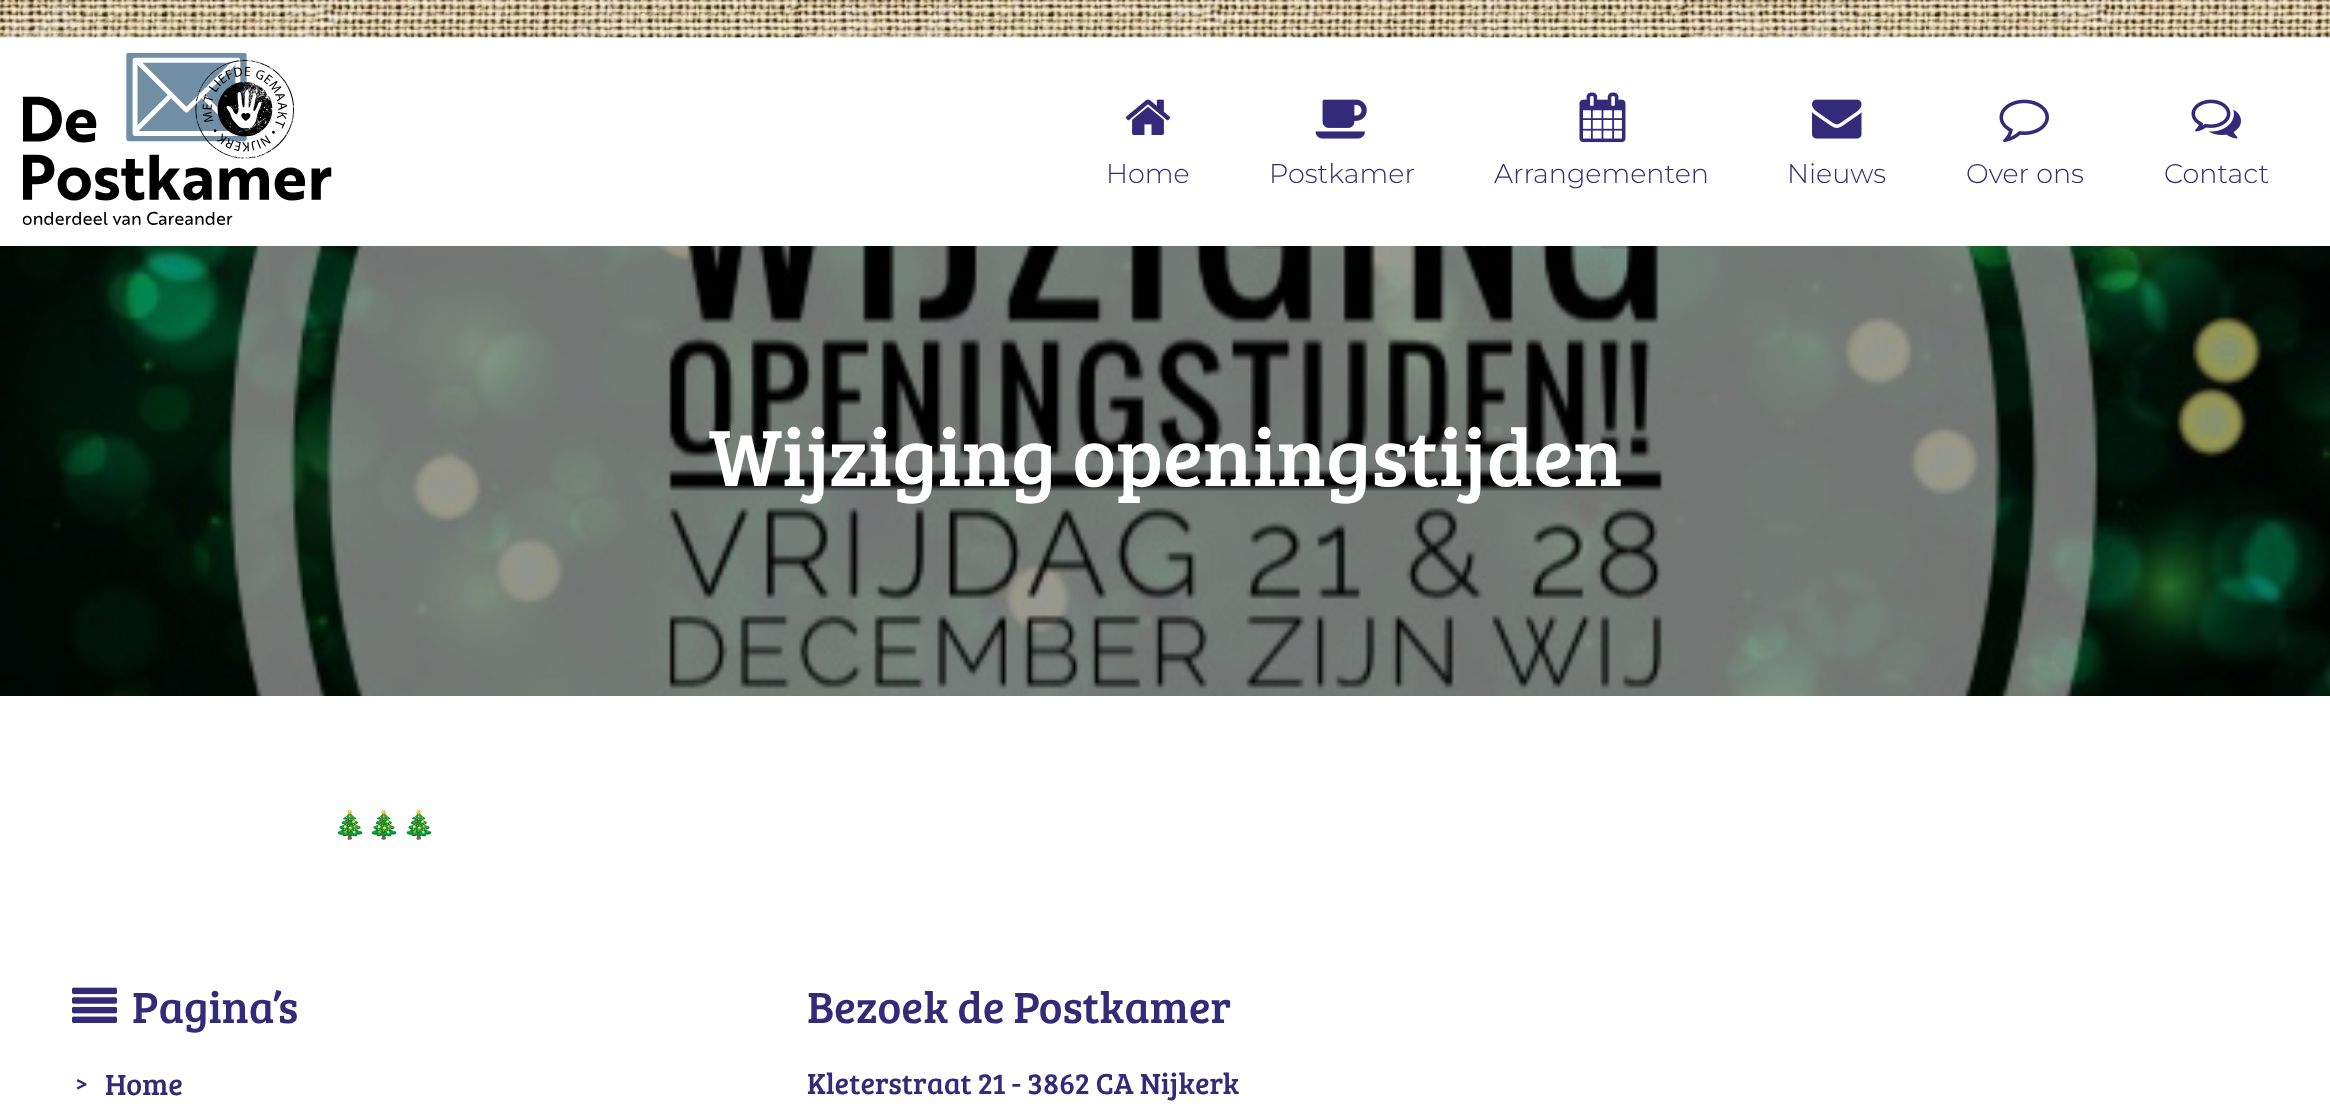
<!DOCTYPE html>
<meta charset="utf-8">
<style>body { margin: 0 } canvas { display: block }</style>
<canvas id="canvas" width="2330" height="1109"></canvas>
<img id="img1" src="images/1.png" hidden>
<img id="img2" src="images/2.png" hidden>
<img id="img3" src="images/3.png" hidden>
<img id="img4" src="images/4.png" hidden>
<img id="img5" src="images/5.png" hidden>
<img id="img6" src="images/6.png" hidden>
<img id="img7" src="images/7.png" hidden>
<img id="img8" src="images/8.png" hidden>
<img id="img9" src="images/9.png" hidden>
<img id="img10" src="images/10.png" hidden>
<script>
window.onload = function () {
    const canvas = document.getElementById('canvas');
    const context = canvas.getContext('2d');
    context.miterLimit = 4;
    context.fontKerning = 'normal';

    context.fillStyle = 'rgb(255, 255, 255)';
    context.fillRect(0, 0, 2330, 1109);
    context.drawImage(document.getElementById('img1'), 0, 0, 2330, 38);
    context.drawImage(document.getElementById('img2'), 23, 53, 309, 172);
    context.drawImage(document.getElementById('img3'), 1125, 99, 46, 36);
    context.drawImage(document.getElementById('img4'), 1315, 99, 52, 40);
    context.drawImage(document.getElementById('img5'), 1579, 92, 47, 51);
    context.drawImage(document.getElementById('img6'), 1812, 99, 50, 40);
    context.drawImage(document.getElementById('img7'), 1999, 99, 50, 44);
    context.drawImage(document.getElementById('img8'), 2191, 99, 50, 40);
    context.drawImage(document.getElementById('img9'), 0, 246, 2330, 450);
    context.drawImage(document.getElementById('img10'), 72, 987, 45, 36);
    context.font = '300 27px Montserrat';
    context.fillStyle = 'rgb(51, 42, 121)';
    context.fillText('Home', 1106, 183);
    context.fillText('Postkamer', 1269, 183);
    context.fillText('Arrangementen', 1494, 183);
    context.fillText('Nieuws', 1787, 183);
    context.fillText('Over ons', 1966, 183);
    context.fillText('Contact', 2164, 183);
    context.font = '82.5px Bree Serif';
    context.fillStyle = 'rgb(255, 255, 255)';
    context.fillText('Wijziging openingstijden', 709, 486);
    context.letterSpacing = '1px';
    context.font = '27px Noto Color Emoji';
    context.fillStyle = 'rgb(51, 51, 51)';
    context.fillText('🎄🎄🎄', 333, 834);
    context.letterSpacing = '0px';
    context.font = '45px Bree Serif';
    context.fillStyle = 'rgb(51, 42, 121)';
    context.fillText('Pagina’s', 132, 1023);
    context.font = '24px Bree Serif';
    context.fillText('>', 75, 1092);
    context.font = '30px Bree Serif';
    context.fillText('Home', 105, 1095);
    context.font = '45px Bree Serif';
    context.fillText('Bezoek de Postkamer', 807, 1023);
    context.font = '30px Bree Serif';
    context.fillText('Kleterstraat 21 - 3862 CA Nijkerk', 807, 1094);
};
</script>
